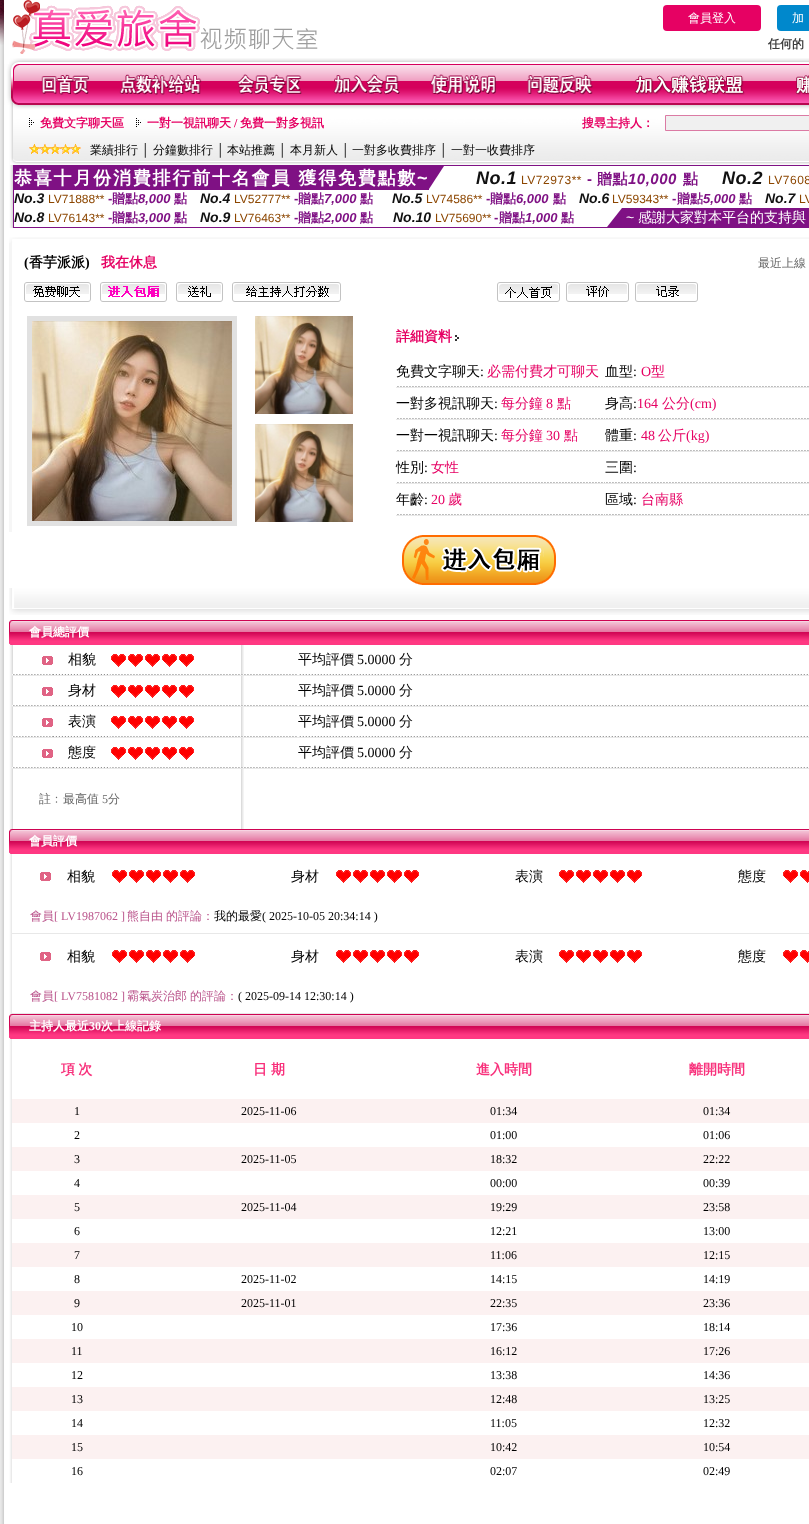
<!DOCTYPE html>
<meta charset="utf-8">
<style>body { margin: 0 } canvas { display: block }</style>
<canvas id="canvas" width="809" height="1524"></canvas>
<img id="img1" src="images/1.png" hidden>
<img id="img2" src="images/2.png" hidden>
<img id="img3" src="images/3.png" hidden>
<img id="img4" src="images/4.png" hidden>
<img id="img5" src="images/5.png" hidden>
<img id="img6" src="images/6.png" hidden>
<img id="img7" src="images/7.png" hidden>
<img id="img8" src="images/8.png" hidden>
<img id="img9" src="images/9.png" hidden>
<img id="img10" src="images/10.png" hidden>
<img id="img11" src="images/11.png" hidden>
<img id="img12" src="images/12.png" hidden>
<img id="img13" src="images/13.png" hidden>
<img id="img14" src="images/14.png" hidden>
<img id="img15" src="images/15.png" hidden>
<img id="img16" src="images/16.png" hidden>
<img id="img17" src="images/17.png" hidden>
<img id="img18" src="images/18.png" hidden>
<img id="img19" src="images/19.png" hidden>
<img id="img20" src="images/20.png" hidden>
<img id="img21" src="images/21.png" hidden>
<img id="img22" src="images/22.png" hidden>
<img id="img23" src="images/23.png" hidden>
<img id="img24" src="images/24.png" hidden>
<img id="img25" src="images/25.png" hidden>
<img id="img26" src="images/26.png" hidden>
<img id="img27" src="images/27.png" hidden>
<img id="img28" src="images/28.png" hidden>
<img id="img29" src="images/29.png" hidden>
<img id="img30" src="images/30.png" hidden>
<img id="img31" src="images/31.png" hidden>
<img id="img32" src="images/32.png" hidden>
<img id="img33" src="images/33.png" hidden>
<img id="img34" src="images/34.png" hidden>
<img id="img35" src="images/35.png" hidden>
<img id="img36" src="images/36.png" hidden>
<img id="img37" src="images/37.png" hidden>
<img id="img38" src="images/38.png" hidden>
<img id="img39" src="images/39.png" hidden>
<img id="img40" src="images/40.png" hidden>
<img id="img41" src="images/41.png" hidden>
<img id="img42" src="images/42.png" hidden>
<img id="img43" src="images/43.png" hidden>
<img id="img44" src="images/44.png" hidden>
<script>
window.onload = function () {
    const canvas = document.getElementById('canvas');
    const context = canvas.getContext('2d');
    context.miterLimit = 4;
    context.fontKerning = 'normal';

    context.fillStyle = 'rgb(255, 255, 255)';
    context.fillRect(0, 0, 809, 1524);
    context.drawImage(document.getElementById('img1'), 0, 45, 244, 1479);
    context.drawImage(document.getElementById('img2'), 0, 0, 4, 45);
    context.fillRect(9, 45, 235, 19);
    context.drawImage(document.getElementById('img3'), 4, 0, 314, 54);
    context.fillStyle = 'rgb(230, 1, 99)';
    context.beginPath();
    context.roundRect(663, 5, 98, 26, 4);
    context.fill();
    context.fillStyle = 'rgb(0, 136, 204)';
    context.beginPath();
    context.roundRect(777, 5, 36, 26, 4);
    context.fill();
    context.drawImage(document.getElementById('img4'), 9, 58, 800, 6);
    context.drawImage(document.getElementById('img5'), 4, 64, 16, 41);
    context.drawImage(document.getElementById('img6'), 20, 64, 789, 41);
    context.drawImage(document.getElementById('img7'), 41, 74, 48, 21);
    context.drawImage(document.getElementById('img8'), 119, 74, 83, 21);
    context.drawImage(document.getElementById('img9'), 237, 74, 65, 21);
    context.drawImage(document.getElementById('img10'), 333, 74, 67, 21);
    context.drawImage(document.getElementById('img11'), 430, 74, 66, 21);
    context.drawImage(document.getElementById('img12'), 527, 74, 66, 21);
    context.drawImage(document.getElementById('img13'), 634, 75, 111, 20);
    context.drawImage(document.getElementById('img14'), 795, 75, 14, 20);
    context.drawImage(document.getElementById('img15'), 10, 105, 799, 60);
    context.drawImage(document.getElementById('img16'), 29, 118, 5, 9);
    context.drawImage(document.getElementById('img17'), 136, 118, 5, 9);
    context.fillStyle = 'rgb(240, 240, 240)';
    context.beginPath();
    context.rect(665.5, 115.5, 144, 15);
    context.fill();
    context.strokeStyle = 'rgb(219, 123, 164)';
    context.stroke();
    context.drawImage(document.getElementById('img18'), 29, 144, 52, 10);
    context.fillStyle = 'rgb(255, 255, 255)';
    context.fillRect(241, 166, 3, 61);
    context.strokeStyle = 'rgb(127, 17, 132)';
    context.strokeRect(13.5, 165.5, 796, 62);
    context.fillStyle = 'rgb(127, 17, 132)';
    context.fillRect(14, 166, 415, 24);
    context.fillStyle = 'rgb(126, 17, 132)';
    context.beginPath();
    context.moveTo(429, 166);
    context.lineTo(444, 166);
    context.lineTo(429, 189);
    context.closePath();
    context.fill();
    context.beginPath();
    context.moveTo(622, 227);
    context.lineTo(607, 227);
    context.lineTo(622, 208);
    context.closePath();
    context.fill();
    context.fillStyle = 'rgb(127, 17, 132)';
    context.fillRect(622, 208, 187, 19);
    context.fillStyle = 'rgb(255, 255, 255)';
    context.fillRect(9, 228, 235, 392);
    context.drawImage(document.getElementById('img19'), 9, 237, 800, 6);
    context.fillStyle = 'rgb(245, 245, 245)';
    context.fillRect(9, 243, 3, 63);
    context.drawImage(document.getElementById('img20'), 24, 282, 67, 20);
    context.drawImage(document.getElementById('img21'), 100, 282, 67, 20);
    context.drawImage(document.getElementById('img22'), 176, 282, 47, 20);
    context.drawImage(document.getElementById('img23'), 232, 282, 109, 20);
    context.drawImage(document.getElementById('img24'), 497, 282, 63, 20);
    context.drawImage(document.getElementById('img25'), 566, 282, 63, 20);
    context.drawImage(document.getElementById('img26'), 635, 282, 63, 20);
    context.fillStyle = 'rgb(246, 246, 246)';
    context.fillRect(9, 306, 3, 226);
    context.strokeStyle = 'rgb(225, 225, 225)';
    context.lineWidth = 5;
    context.strokeRect(29.5, 318.5, 205, 205);
    context.drawImage(document.getElementById('img27'), 32, 321, 200, 200);
    context.drawImage(document.getElementById('img28'), 255, 316, 98, 98);
    context.drawImage(document.getElementById('img28'), 255, 424, 98, 98);
    context.drawImage(document.getElementById('img29'), 455, 335, 4, 6);
    context.drawImage(document.getElementById('img30'), 397, 386, 208, 1);
    context.fillStyle = 'rgb(232, 232, 232)';
    context.fillRect(396, 387, 413, 1);
    context.drawImage(document.getElementById('img31'), 606, 386, 203, 1);
    context.drawImage(document.getElementById('img30'), 397, 418, 208, 1);
    context.fillRect(396, 419, 413, 1);
    context.drawImage(document.getElementById('img31'), 606, 418, 203, 1);
    context.drawImage(document.getElementById('img30'), 397, 450, 208, 1);
    context.fillRect(396, 451, 413, 1);
    context.drawImage(document.getElementById('img31'), 606, 450, 203, 1);
    context.drawImage(document.getElementById('img30'), 397, 482, 208, 1);
    context.fillRect(396, 483, 413, 1);
    context.drawImage(document.getElementById('img31'), 606, 482, 203, 1);
    context.drawImage(document.getElementById('img30'), 397, 514, 208, 1);
    context.fillRect(396, 515, 413, 1);
    context.drawImage(document.getElementById('img31'), 606, 514, 203, 1);
    context.drawImage(document.getElementById('img32'), 402, 535, 154, 50);
    context.drawImage(document.getElementById('img33'), 9, 588, 800, 27);
    context.drawImage(document.getElementById('img34'), 13, 620, 16, 25);
    context.drawImage(document.getElementById('img35'), 9, 620, 4, 25);
    context.drawImage(document.getElementById('img36'), 29, 620, 606, 25);
    context.drawImage(document.getElementById('img37'), 635, 620, 174, 25);
    context.drawImage(document.getElementById('img38'), 53, 674, 57, 1);
    context.drawImage(document.getElementById('img39'), 110, 674, 187, 1);
    context.drawImage(document.getElementById('img40'), 111, 654, 15, 13);
    context.drawImage(document.getElementById('img40'), 128, 654, 15, 13);
    context.drawImage(document.getElementById('img40'), 145, 654, 15, 13);
    context.drawImage(document.getElementById('img40'), 162, 654, 15, 13);
    context.drawImage(document.getElementById('img40'), 179, 654, 15, 13);
    context.drawImage(document.getElementById('img41'), 299, 674, 509, 1);
    context.drawImage(document.getElementById('img42'), 12, 674, 41, 1);
    context.fillRect(12, 675, 797, 1);
    context.drawImage(document.getElementById('img43'), 42, 656, 11, 9);
    context.drawImage(document.getElementById('img38'), 53, 705, 57, 1);
    context.drawImage(document.getElementById('img39'), 110, 705, 187, 1);
    context.drawImage(document.getElementById('img40'), 111, 685, 15, 13);
    context.drawImage(document.getElementById('img40'), 128, 685, 15, 13);
    context.drawImage(document.getElementById('img40'), 145, 685, 15, 13);
    context.drawImage(document.getElementById('img40'), 162, 685, 15, 13);
    context.drawImage(document.getElementById('img40'), 179, 685, 15, 13);
    context.drawImage(document.getElementById('img41'), 299, 705, 509, 1);
    context.drawImage(document.getElementById('img42'), 12, 705, 41, 1);
    context.fillRect(12, 706, 797, 1);
    context.drawImage(document.getElementById('img43'), 42, 687, 11, 9);
    context.drawImage(document.getElementById('img38'), 53, 736, 57, 1);
    context.drawImage(document.getElementById('img39'), 110, 736, 187, 1);
    context.drawImage(document.getElementById('img40'), 111, 716, 15, 13);
    context.drawImage(document.getElementById('img40'), 128, 716, 15, 13);
    context.drawImage(document.getElementById('img40'), 145, 716, 15, 13);
    context.drawImage(document.getElementById('img40'), 162, 716, 15, 13);
    context.drawImage(document.getElementById('img40'), 179, 716, 15, 13);
    context.drawImage(document.getElementById('img41'), 299, 736, 509, 1);
    context.drawImage(document.getElementById('img42'), 12, 736, 41, 1);
    context.fillRect(12, 737, 797, 1);
    context.drawImage(document.getElementById('img43'), 42, 718, 11, 9);
    context.drawImage(document.getElementById('img38'), 53, 767, 57, 1);
    context.drawImage(document.getElementById('img39'), 110, 767, 187, 1);
    context.drawImage(document.getElementById('img40'), 111, 747, 15, 13);
    context.drawImage(document.getElementById('img40'), 128, 747, 15, 13);
    context.drawImage(document.getElementById('img40'), 145, 747, 15, 13);
    context.drawImage(document.getElementById('img40'), 162, 747, 15, 13);
    context.drawImage(document.getElementById('img40'), 179, 747, 15, 13);
    context.drawImage(document.getElementById('img41'), 299, 767, 509, 1);
    context.drawImage(document.getElementById('img42'), 12, 767, 41, 1);
    context.fillRect(12, 768, 797, 1);
    context.drawImage(document.getElementById('img43'), 42, 749, 11, 9);
    context.drawImage(document.getElementById('img34'), 13, 829, 16, 25);
    context.drawImage(document.getElementById('img35'), 9, 829, 4, 25);
    context.drawImage(document.getElementById('img36'), 29, 829, 606, 25);
    context.drawImage(document.getElementById('img37'), 635, 829, 174, 25);
    context.fillStyle = 'rgb(255, 255, 255)';
    context.fillRect(12, 854, 232, 159);
    context.drawImage(document.getElementById('img43'), 40, 872, 11, 9);
    context.drawImage(document.getElementById('img40'), 112, 870, 15, 13);
    context.drawImage(document.getElementById('img40'), 129, 870, 15, 13);
    context.drawImage(document.getElementById('img40'), 146, 870, 15, 13);
    context.drawImage(document.getElementById('img40'), 163, 870, 15, 13);
    context.drawImage(document.getElementById('img40'), 180, 870, 15, 13);
    context.drawImage(document.getElementById('img40'), 336, 870, 15, 13);
    context.drawImage(document.getElementById('img40'), 353, 870, 15, 13);
    context.drawImage(document.getElementById('img40'), 370, 870, 15, 13);
    context.drawImage(document.getElementById('img40'), 387, 870, 15, 13);
    context.drawImage(document.getElementById('img40'), 404, 870, 15, 13);
    context.drawImage(document.getElementById('img40'), 559, 870, 15, 13);
    context.drawImage(document.getElementById('img40'), 576, 870, 15, 13);
    context.drawImage(document.getElementById('img40'), 593, 870, 15, 13);
    context.drawImage(document.getElementById('img40'), 610, 870, 15, 13);
    context.drawImage(document.getElementById('img40'), 627, 870, 15, 13);
    context.drawImage(document.getElementById('img40'), 783, 870, 15, 13);
    context.drawImage(document.getElementById('img44'), 800, 870, 9, 13);
    context.fillStyle = 'rgb(232, 232, 232)';
    context.fillRect(12, 933, 797, 1);
    context.drawImage(document.getElementById('img43'), 40, 952, 11, 9);
    context.drawImage(document.getElementById('img40'), 112, 950, 15, 13);
    context.drawImage(document.getElementById('img40'), 129, 950, 15, 13);
    context.drawImage(document.getElementById('img40'), 146, 950, 15, 13);
    context.drawImage(document.getElementById('img40'), 163, 950, 15, 13);
    context.drawImage(document.getElementById('img40'), 180, 950, 15, 13);
    context.drawImage(document.getElementById('img40'), 336, 950, 15, 13);
    context.drawImage(document.getElementById('img40'), 353, 950, 15, 13);
    context.drawImage(document.getElementById('img40'), 370, 950, 15, 13);
    context.drawImage(document.getElementById('img40'), 387, 950, 15, 13);
    context.drawImage(document.getElementById('img40'), 404, 950, 15, 13);
    context.drawImage(document.getElementById('img40'), 559, 950, 15, 13);
    context.drawImage(document.getElementById('img40'), 576, 950, 15, 13);
    context.drawImage(document.getElementById('img40'), 593, 950, 15, 13);
    context.drawImage(document.getElementById('img40'), 610, 950, 15, 13);
    context.drawImage(document.getElementById('img40'), 627, 950, 15, 13);
    context.drawImage(document.getElementById('img40'), 783, 950, 15, 13);
    context.drawImage(document.getElementById('img44'), 800, 950, 9, 13);
    context.fillRect(12, 1013, 797, 1);
    context.drawImage(document.getElementById('img34'), 13, 1014, 16, 25);
    context.drawImage(document.getElementById('img35'), 9, 1014, 4, 25);
    context.drawImage(document.getElementById('img36'), 29, 1014, 606, 25);
    context.drawImage(document.getElementById('img37'), 635, 1014, 174, 25);
    context.fillStyle = 'rgb(255, 255, 255)';
    context.fillRect(12, 1039, 232, 444);
    context.fillStyle = 'rgb(252, 241, 241)';
    context.fillRect(12, 1099, 797, 24);
    context.fillRect(12, 1147, 797, 24);
    context.fillRect(12, 1195, 797, 24);
    context.fillRect(12, 1243, 797, 24);
    context.fillRect(12, 1291, 797, 24);
    context.fillRect(12, 1339, 797, 24);
    context.fillRect(12, 1387, 797, 24);
    context.fillRect(12, 1435, 797, 24);
    context.fillStyle = 'rgb(255, 255, 255)';
    context.fillRect(9, 1483, 235, 41);
    context.font = '500 12px WenQuanYi Zen Hei';
    context.fillText('會員登入', 688, 22);
    context.fillText('加', 792, 22);
    context.wordSpacing = '-1px';
    context.font = 'bold 12px WenQuanYi Zen Hei';
    context.fillStyle = 'rgb(60, 60, 60)';
    context.fillText('任何的', 768, 48);
    context.wordSpacing = '0px';
    context.fillStyle = 'rgb(230, 1, 99)';
    context.fillText('免費文字聊天區', 40, 127);
    context.fillText('一對一視訊聊天', 147, 127);
    context.font = 'bold 12px Liberation Serif';
    context.fillText('/', 234, 127);
    context.font = 'bold 12px WenQuanYi Zen Hei';
    context.fillText('免費一對多視訊', 240, 127);
    context.fillText('搜尋主持人：', 582, 127);
    context.font = '500 12px WenQuanYi Zen Hei';
    context.fillStyle = 'rgb(0, 0, 0)';
    context.fillText('業績排行', 90, 154);
    context.font = '12px Liberation Serif';
    context.fillText('│', 141, 154);
    context.font = '500 12px WenQuanYi Zen Hei';
    context.fillText('分鐘數排行', 153, 154);
    context.font = '12px Liberation Serif';
    context.fillText('│', 216, 154);
    context.font = '500 12px WenQuanYi Zen Hei';
    context.fillText('本站推薦', 227, 154);
    context.font = '12px Liberation Serif';
    context.fillText('│', 278, 154);
    context.font = '500 12px WenQuanYi Zen Hei';
    context.fillText('本月新人', 290, 154);
    context.font = '12px Liberation Serif';
    context.fillText('│', 341, 154);
    context.font = '500 12px WenQuanYi Zen Hei';
    context.fillText('一對多收費排序', 352, 154);
    context.font = '12px Liberation Serif';
    context.fillText('│', 439, 154);
    context.font = '500 12px WenQuanYi Zen Hei';
    context.fillText('一對一收費排序', 451, 154);
    context.letterSpacing = '1.8px';
    context.font = 'bold 18px WenQuanYi Zen Hei';
    context.fillStyle = 'rgb(255, 255, 255)';
    context.fillText('恭喜十月份消費排行前十名會員 獲得免費點數', 14, 184);
    context.font = 'bold 18px Liberation Sans';
    context.fillText('~', 417, 184);
    context.letterSpacing = '0.5px';
    context.font = 'italic bold 18px Liberation Sans';
    context.fillStyle = 'rgb(17, 17, 17)';
    context.fillText('No.1', 476, 184);
    context.font = '12px Liberation Sans';
    context.fillStyle = 'rgb(140, 70, 0)';
    context.fillText('LV72973**', 521, 184);
    context.font = 'bold 15px Liberation Sans';
    context.fillStyle = 'rgb(127, 17, 132)';
    context.fillText('-', 587, 184);
    context.font = 'bold 15px WenQuanYi Zen Hei';
    context.fillText('贈點', 597, 184);
    context.font = 'italic bold 15px Liberation Sans';
    context.fillText('10,000', 628, 184);
    context.font = 'bold 15px WenQuanYi Zen Hei';
    context.fillText('點', 683, 184);
    context.font = 'italic bold 18px Liberation Sans';
    context.fillStyle = 'rgb(17, 17, 17)';
    context.fillText('No.2', 722, 184);
    context.font = '12px Liberation Sans';
    context.fillStyle = 'rgb(140, 70, 0)';
    context.fillText('LV7608', 768, 184);
    context.letterSpacing = '0px';
    context.font = 'italic bold 14px Liberation Sans';
    context.fillStyle = 'rgb(17, 17, 17)';
    context.fillText('No.3', 14, 203);
    context.font = '12px Liberation Sans';
    context.fillStyle = 'rgb(140, 70, 0)';
    context.fillText('LV71888**', 48, 203);
    context.font = 'bold 13px Liberation Sans';
    context.fillStyle = 'rgb(127, 17, 132)';
    context.fillText('-', 108, 203);
    context.font = 'bold 13px WenQuanYi Zen Hei';
    context.fillText('贈點', 112, 203);
    context.font = 'italic bold 13px Liberation Sans';
    context.fillText('8,000', 138, 203);
    context.font = 'bold 13px WenQuanYi Zen Hei';
    context.fillText('點', 174, 203);
    context.font = 'italic bold 14px Liberation Sans';
    context.fillStyle = 'rgb(17, 17, 17)';
    context.fillText('No.4', 200, 203);
    context.font = '12px Liberation Sans';
    context.fillStyle = 'rgb(140, 70, 0)';
    context.fillText('LV52777**', 234, 203);
    context.font = 'bold 13px Liberation Sans';
    context.fillStyle = 'rgb(127, 17, 132)';
    context.fillText('-', 294, 203);
    context.font = 'bold 13px WenQuanYi Zen Hei';
    context.fillText('贈點', 298, 203);
    context.font = 'italic bold 13px Liberation Sans';
    context.fillText('7,000', 324, 203);
    context.font = 'bold 13px WenQuanYi Zen Hei';
    context.fillText('點', 360, 203);
    context.font = 'italic bold 14px Liberation Sans';
    context.fillStyle = 'rgb(17, 17, 17)';
    context.fillText('No.5', 392, 203);
    context.font = '12px Liberation Sans';
    context.fillStyle = 'rgb(140, 70, 0)';
    context.fillText('LV74586**', 426, 203);
    context.font = 'bold 13px Liberation Sans';
    context.fillStyle = 'rgb(127, 17, 132)';
    context.fillText('-', 486, 203);
    context.font = 'bold 13px WenQuanYi Zen Hei';
    context.fillText('贈點', 490, 203);
    context.font = 'italic bold 13px Liberation Sans';
    context.fillText('6,000', 516, 203);
    context.font = 'bold 13px WenQuanYi Zen Hei';
    context.fillText('點', 553, 203);
    context.font = 'italic bold 14px Liberation Sans';
    context.fillStyle = 'rgb(17, 17, 17)';
    context.fillText('No.6', 579, 203);
    context.font = '12px Liberation Sans';
    context.fillStyle = 'rgb(140, 70, 0)';
    context.fillText('LV59343**', 612, 203);
    context.font = 'bold 13px Liberation Sans';
    context.fillStyle = 'rgb(127, 17, 132)';
    context.fillText('-', 672, 203);
    context.font = 'bold 13px WenQuanYi Zen Hei';
    context.fillText('贈點', 677, 203);
    context.font = 'italic bold 13px Liberation Sans';
    context.fillText('5,000', 703, 203);
    context.font = 'bold 13px WenQuanYi Zen Hei';
    context.fillText('點', 739, 203);
    context.font = 'italic bold 14px Liberation Sans';
    context.fillStyle = 'rgb(17, 17, 17)';
    context.fillText('No.7', 765, 203);
    context.font = '12px Liberation Sans';
    context.fillStyle = 'rgb(140, 70, 0)';
    context.fillText('LV', 799, 203);
    context.font = 'italic bold 14px Liberation Sans';
    context.fillStyle = 'rgb(17, 17, 17)';
    context.fillText('No.8', 14, 222);
    context.font = '12px Liberation Sans';
    context.fillStyle = 'rgb(140, 70, 0)';
    context.fillText('LV76143**', 48, 222);
    context.font = 'bold 13px Liberation Sans';
    context.fillStyle = 'rgb(127, 17, 132)';
    context.fillText('-', 108, 222);
    context.font = 'bold 13px WenQuanYi Zen Hei';
    context.fillText('贈點', 112, 222);
    context.font = 'italic bold 13px Liberation Sans';
    context.fillText('3,000', 138, 222);
    context.font = 'bold 13px WenQuanYi Zen Hei';
    context.fillText('點', 174, 222);
    context.font = 'italic bold 14px Liberation Sans';
    context.fillStyle = 'rgb(17, 17, 17)';
    context.fillText('No.9', 200, 222);
    context.font = '12px Liberation Sans';
    context.fillStyle = 'rgb(140, 70, 0)';
    context.fillText('LV76463**', 234, 222);
    context.font = 'bold 13px Liberation Sans';
    context.fillStyle = 'rgb(127, 17, 132)';
    context.fillText('-', 294, 222);
    context.font = 'bold 13px WenQuanYi Zen Hei';
    context.fillText('贈點', 298, 222);
    context.font = 'italic bold 13px Liberation Sans';
    context.fillText('2,000', 324, 222);
    context.font = 'bold 13px WenQuanYi Zen Hei';
    context.fillText('點', 360, 222);
    context.font = 'italic bold 14px Liberation Sans';
    context.fillStyle = 'rgb(17, 17, 17)';
    context.fillText('No.10', 393, 222);
    context.font = '12px Liberation Sans';
    context.fillStyle = 'rgb(140, 70, 0)';
    context.fillText('LV75690**', 435, 222);
    context.font = 'bold 13px Liberation Sans';
    context.fillStyle = 'rgb(127, 17, 132)';
    context.fillText('-', 494, 222);
    context.font = 'bold 13px WenQuanYi Zen Hei';
    context.fillText('贈點', 499, 222);
    context.font = 'italic bold 13px Liberation Sans';
    context.fillText('1,000', 525, 222);
    context.font = 'bold 13px WenQuanYi Zen Hei';
    context.fillText('點', 561, 222);
    context.font = '14px Liberation Sans';
    context.fillStyle = 'rgb(255, 255, 255)';
    context.fillText('~', 626, 222);
    context.font = '500 14px WenQuanYi Zen Hei';
    context.fillText('感謝大家對本平台的支持與', 638, 222);
    context.font = 'bold 14px Liberation Serif';
    context.fillStyle = 'rgb(0, 0, 0)';
    context.fillText('(', 24, 267);
    context.font = 'bold 14px WenQuanYi Zen Hei';
    context.fillText('香芋派派', 29, 267);
    context.font = 'bold 14px Liberation Serif';
    context.fillText(')', 85, 267);
    context.font = 'bold 14px WenQuanYi Zen Hei';
    context.fillStyle = 'rgb(230, 1, 99)';
    context.fillText('我在休息', 101, 267);
    context.font = '500 12px WenQuanYi Zen Hei';
    context.fillStyle = 'rgb(102, 102, 102)';
    context.fillText('最近上線', 758, 267);
    context.font = 'bold 14px WenQuanYi Zen Hei';
    context.fillStyle = 'rgb(230, 1, 99)';
    context.fillText('詳細資料', 396, 341);
    context.font = '500 14px WenQuanYi Zen Hei';
    context.fillStyle = 'rgb(0, 0, 0)';
    context.fillText('免費文字聊天', 396, 376);
    context.font = '14px Liberation Serif';
    context.fillText(':', 480, 376);
    context.font = '500 14px WenQuanYi Zen Hei';
    context.fillStyle = 'rgb(230, 1, 99)';
    context.fillText('必需付費才可聊天', 487, 376);
    context.fillStyle = 'rgb(0, 0, 0)';
    context.fillText('血型', 605, 376);
    context.font = '14px Liberation Serif';
    context.fillText(':', 633, 376);
    context.fillStyle = 'rgb(230, 1, 99)';
    context.fillText('O', 641, 376);
    context.font = '500 14px WenQuanYi Zen Hei';
    context.fillText('型', 651, 376);
    context.fillStyle = 'rgb(0, 0, 0)';
    context.fillText('一對多視訊聊天', 396, 408);
    context.font = '14px Liberation Serif';
    context.fillText(':', 494, 408);
    context.font = '500 14px WenQuanYi Zen Hei';
    context.fillStyle = 'rgb(230, 1, 99)';
    context.fillText('每分鐘', 501, 408);
    context.font = '14px Liberation Serif';
    context.fillText('8', 546, 408);
    context.font = '500 14px WenQuanYi Zen Hei';
    context.fillText('點', 557, 408);
    context.fillStyle = 'rgb(0, 0, 0)';
    context.fillText('身高', 605, 408);
    context.font = '14px Liberation Serif';
    context.fillText(':', 633, 408);
    context.fillStyle = 'rgb(230, 1, 99)';
    context.fillText('164', 637, 408);
    context.font = '500 14px WenQuanYi Zen Hei';
    context.fillText('公分', 662, 408);
    context.font = '14px Liberation Serif';
    context.fillText('(cm)', 690, 408);
    context.font = '500 14px WenQuanYi Zen Hei';
    context.fillStyle = 'rgb(0, 0, 0)';
    context.fillText('一對一視訊聊天', 396, 440);
    context.font = '14px Liberation Serif';
    context.fillText(':', 494, 440);
    context.font = '500 14px WenQuanYi Zen Hei';
    context.fillStyle = 'rgb(230, 1, 99)';
    context.fillText('每分鐘', 501, 440);
    context.font = '14px Liberation Serif';
    context.fillText('30', 546, 440);
    context.font = '500 14px WenQuanYi Zen Hei';
    context.fillText('點', 564, 440);
    context.fillStyle = 'rgb(0, 0, 0)';
    context.fillText('體重', 605, 440);
    context.font = '14px Liberation Serif';
    context.fillText(':', 633, 440);
    context.fillStyle = 'rgb(230, 1, 99)';
    context.fillText('48', 641, 440);
    context.font = '500 14px WenQuanYi Zen Hei';
    context.fillText('公斤', 658, 440);
    context.font = '14px Liberation Serif';
    context.fillText('(kg)', 686, 440);
    context.font = '500 14px WenQuanYi Zen Hei';
    context.fillStyle = 'rgb(0, 0, 0)';
    context.fillText('性別', 396, 472);
    context.font = '14px Liberation Serif';
    context.fillText(':', 424, 472);
    context.font = '500 14px WenQuanYi Zen Hei';
    context.fillStyle = 'rgb(230, 1, 99)';
    context.fillText('女性', 431, 472);
    context.fillStyle = 'rgb(0, 0, 0)';
    context.fillText('三圍', 605, 472);
    context.font = '14px Liberation Serif';
    context.fillText(':', 633, 472);
    context.font = '500 14px WenQuanYi Zen Hei';
    context.fillText('年齡', 396, 504);
    context.font = '14px Liberation Serif';
    context.fillText(':', 424, 504);
    context.fillStyle = 'rgb(230, 1, 99)';
    context.fillText('20', 431, 504);
    context.font = '500 14px WenQuanYi Zen Hei';
    context.fillText('歲', 448, 504);
    context.fillStyle = 'rgb(0, 0, 0)';
    context.fillText('區域', 605, 504);
    context.font = '14px Liberation Serif';
    context.fillText(':', 633, 504);
    context.font = '500 14px WenQuanYi Zen Hei';
    context.fillStyle = 'rgb(230, 1, 99)';
    context.fillText('台南縣', 641, 504);
    context.font = 'bold 12px WenQuanYi Zen Hei';
    context.fillStyle = 'rgb(255, 255, 255)';
    context.fillText('會員總評價', 29, 636);
    context.font = '500 14px WenQuanYi Zen Hei';
    context.fillStyle = 'rgb(0, 0, 0)';
    context.fillText('相貌', 68, 664);
    context.fillText('平均評價', 298, 664);
    context.font = '14px Liberation Serif';
    context.fillText('5.0000', 357, 664);
    context.font = '500 14px WenQuanYi Zen Hei';
    context.fillText('分', 399, 664);
    context.fillText('身材', 68, 695);
    context.fillText('平均評價', 298, 695);
    context.font = '14px Liberation Serif';
    context.fillText('5.0000', 357, 695);
    context.font = '500 14px WenQuanYi Zen Hei';
    context.fillText('分', 399, 695);
    context.fillText('表演', 68, 726);
    context.fillText('平均評價', 298, 726);
    context.font = '14px Liberation Serif';
    context.fillText('5.0000', 357, 726);
    context.font = '500 14px WenQuanYi Zen Hei';
    context.fillText('分', 399, 726);
    context.fillText('態度', 68, 757);
    context.fillText('平均評價', 298, 757);
    context.font = '14px Liberation Serif';
    context.fillText('5.0000', 357, 757);
    context.font = '500 14px WenQuanYi Zen Hei';
    context.fillText('分', 399, 757);
    context.font = '500 12px WenQuanYi Zen Hei';
    context.fillStyle = 'rgb(102, 102, 102)';
    context.fillText('註﹕最高值', 39, 803);
    context.font = '12px Liberation Serif';
    context.fillText('5', 102, 803);
    context.font = '500 12px WenQuanYi Zen Hei';
    context.fillText('分', 108, 803);
    context.font = 'bold 12px WenQuanYi Zen Hei';
    context.fillStyle = 'rgb(255, 255, 255)';
    context.fillText('會員評價', 29, 845);
    context.font = '500 14px WenQuanYi Zen Hei';
    context.fillStyle = 'rgb(0, 0, 0)';
    context.fillText('相貌', 67, 881);
    context.fillText('身材', 291, 881);
    context.fillText('表演', 515, 881);
    context.fillText('態度', 738, 881);
    context.font = '500 12px WenQuanYi Zen Hei';
    context.fillStyle = 'rgb(186, 83, 139)';
    context.fillText('會員', 30, 920);
    context.font = '12px Liberation Serif';
    context.fillText('[ LV1987062 ]', 54, 920);
    context.font = '500 12px WenQuanYi Zen Hei';
    context.fillText('熊自由', 127, 920);
    context.fillText('的評論：', 166, 920);
    context.fillStyle = 'rgb(0, 0, 0)';
    context.fillText('我的最愛', 214, 920);
    context.font = '12px Liberation Serif';
    context.fillText('( 2025-10-05 20:34:14 )', 262, 920);
    context.font = '500 14px WenQuanYi Zen Hei';
    context.fillText('相貌', 67, 961);
    context.fillText('身材', 291, 961);
    context.fillText('表演', 515, 961);
    context.fillText('態度', 738, 961);
    context.font = '500 12px WenQuanYi Zen Hei';
    context.fillStyle = 'rgb(186, 83, 139)';
    context.fillText('會員', 30, 1000);
    context.font = '12px Liberation Serif';
    context.fillText('[ LV7581082 ]', 54, 1000);
    context.font = '500 12px WenQuanYi Zen Hei';
    context.fillText('霸氣炭治郎', 127, 1000);
    context.fillText('的評論：', 190, 1000);
    context.font = '12px Liberation Serif';
    context.fillStyle = 'rgb(0, 0, 0)';
    context.fillText('( 2025-09-14 12:30:14 )', 238, 1000);
    context.font = 'bold 12px WenQuanYi Zen Hei';
    context.fillStyle = 'rgb(255, 255, 255)';
    context.fillText('主持人最近', 29, 1030);
    context.font = 'bold 12px Liberation Serif';
    context.fillText('30', 89, 1030);
    context.font = 'bold 12px WenQuanYi Zen Hei';
    context.fillText('次上線記錄', 101, 1030);
    context.wordSpacing = '-1px';
    context.font = 'bold 14px WenQuanYi Zen Hei';
    context.fillStyle = 'rgb(248, 48, 123)';
    context.fillText('項 次', 61, 1074);
    context.wordSpacing = '0px';
    context.fillText('日', 253, 1074);
    context.fillText('期', 271, 1074);
    context.fillText('進入時間', 476, 1074);
    context.fillText('離開時間', 689, 1074);
    context.font = '12px Liberation Serif';
    context.fillStyle = 'rgb(0, 0, 0)';
    context.fillText('1', 74, 1115);
    context.fillText('2025-11-06', 241, 1115);
    context.fillText('01:34', 490, 1115);
    context.fillText('01:34', 703, 1115);
    context.fillText('2', 74, 1139);
    context.fillText('01:00', 490, 1139);
    context.fillText('01:06', 703, 1139);
    context.fillText('3', 74, 1163);
    context.fillText('2025-11-05', 241, 1163);
    context.fillText('18:32', 490, 1163);
    context.fillText('22:22', 703, 1163);
    context.fillText('4', 74, 1187);
    context.fillText('00:00', 490, 1187);
    context.fillText('00:39', 703, 1187);
    context.fillText('5', 74, 1211);
    context.fillText('2025-11-04', 241, 1211);
    context.fillText('19:29', 490, 1211);
    context.fillText('23:58', 703, 1211);
    context.fillText('6', 74, 1235);
    context.fillText('12:21', 490, 1235);
    context.fillText('13:00', 703, 1235);
    context.fillText('7', 74, 1259);
    context.fillText('11:06', 490, 1259);
    context.fillText('12:15', 703, 1259);
    context.fillText('8', 74, 1283);
    context.fillText('2025-11-02', 241, 1283);
    context.fillText('14:15', 490, 1283);
    context.fillText('14:19', 703, 1283);
    context.fillText('9', 74, 1307);
    context.fillText('2025-11-01', 241, 1307);
    context.fillText('22:35', 490, 1307);
    context.fillText('23:36', 703, 1307);
    context.fillText('10', 71, 1331);
    context.fillText('17:36', 490, 1331);
    context.fillText('18:14', 703, 1331);
    context.fillText('11', 71, 1355);
    context.fillText('16:12', 490, 1355);
    context.fillText('17:26', 703, 1355);
    context.fillText('12', 71, 1379);
    context.fillText('13:38', 490, 1379);
    context.fillText('14:36', 703, 1379);
    context.fillText('13', 71, 1403);
    context.fillText('12:48', 490, 1403);
    context.fillText('13:25', 703, 1403);
    context.fillText('14', 71, 1427);
    context.fillText('11:05', 490, 1427);
    context.fillText('12:32', 703, 1427);
    context.fillText('15', 71, 1451);
    context.fillText('10:42', 490, 1451);
    context.fillText('10:54', 703, 1451);
    context.fillText('16', 71, 1475);
    context.fillText('02:07', 490, 1475);
    context.fillText('02:49', 703, 1475);
};
</script>
